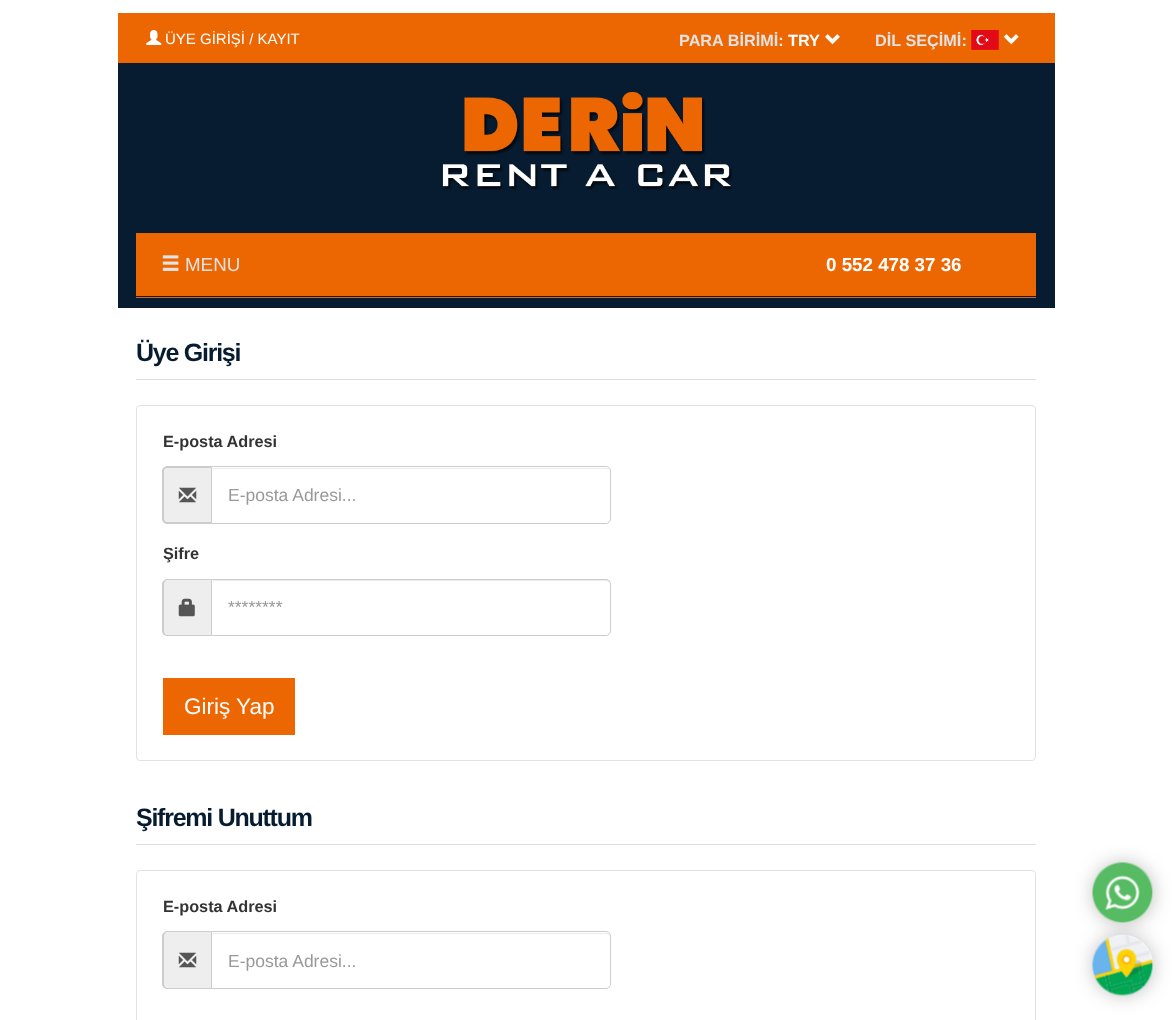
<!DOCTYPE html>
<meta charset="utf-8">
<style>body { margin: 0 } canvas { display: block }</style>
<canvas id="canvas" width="1172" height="1020"></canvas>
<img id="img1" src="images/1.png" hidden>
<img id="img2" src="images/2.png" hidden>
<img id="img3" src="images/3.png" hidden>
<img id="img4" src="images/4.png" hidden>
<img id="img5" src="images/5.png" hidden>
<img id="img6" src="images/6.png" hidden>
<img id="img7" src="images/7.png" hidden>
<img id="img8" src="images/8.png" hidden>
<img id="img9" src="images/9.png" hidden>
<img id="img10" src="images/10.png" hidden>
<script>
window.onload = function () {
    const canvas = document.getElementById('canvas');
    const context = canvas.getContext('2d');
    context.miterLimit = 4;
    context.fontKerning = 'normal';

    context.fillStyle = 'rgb(255, 255, 255)';
    context.fillRect(0, 0, 1172, 1020);
    context.fillStyle = 'rgb(236, 103, 2)';
    context.fillRect(118, 13, 937, 50);
    context.drawImage(document.getElementById('img1'), 146, 30, 16, 15);
    context.drawImage(document.getElementById('img2'), 825, 34, 15, 11);
    context.drawImage(document.getElementById('img3'), 971, 30, 28, 20);
    context.drawImage(document.getElementById('img4'), 1003, 34, 16, 11);
    context.fillStyle = 'rgb(8, 28, 49)';
    context.fillRect(118, 63, 937, 245);
    context.drawImage(document.getElementById('img5'), 442, 92, 291, 98);
    context.fillStyle = 'rgb(236, 103, 2)';
    context.fillRect(136, 233, 900, 65);
    context.fillStyle = 'rgb(8, 28, 49)';
    context.fillRect(136, 296, 900, 1);
    context.drawImage(document.getElementById('img6'), 162, 255, 17, 16);
    context.fillStyle = 'rgb(221, 221, 221)';
    context.fillRect(136, 379, 900, 1);
    context.beginPath();
    context.roundRect(136.5, 405.5, 899, 355, 3.5);
    context.strokeStyle = 'rgb(226, 226, 226)';
    context.stroke();
    context.fillStyle = 'rgb(238, 238, 238)';
    context.beginPath();
    context.roundRect(163, 466, 48, 58, [5, 0, 0, 5]);
    context.fill();
    context.fillStyle = 'rgb(204, 204, 204)';
    context.beginPath();
    context.moveTo(168, 466);
    context.lineTo(211, 466);
    context.lineTo(211, 524);
    context.lineTo(168, 524);
    context.bezierCurveTo(165, 524, 162, 522, 162, 519);
    context.lineTo(162, 471);
    context.bezierCurveTo(162, 468, 165, 466, 168, 466);
    context.closePath();
    context.moveTo(168, 468);
    context.lineTo(211, 468);
    context.lineTo(211, 522);
    context.lineTo(168, 522);
    context.bezierCurveTo(165, 522, 164, 521, 164, 519);
    context.lineTo(164, 471);
    context.bezierCurveTo(164, 469, 165, 468, 168, 468);
    context.closePath();
    context.fill('evenodd');
    context.drawImage(document.getElementById('img7'), 178, 487, 19, 16);
    context.fillStyle = 'rgb(236, 236, 236)';
    context.beginPath();
    context.moveTo(213, 468);
    context.lineTo(213, 469);
    context.lineTo(606, 469);
    context.bezierCurveTo(608, 469, 610, 470, 610, 472);
    context.bezierCurveTo(610, 470, 608, 468, 606, 468);
    context.closePath();
    context.fill();
    context.beginPath();
    context.roundRect(211.5, 466.5, 399, 57, [0, 4.5, 4.5, 0]);
    context.strokeStyle = 'rgb(204, 204, 204)';
    context.stroke();
    context.fillStyle = 'rgb(238, 238, 238)';
    context.beginPath();
    context.roundRect(163, 579, 48, 57, [5, 0, 0, 5]);
    context.fill();
    context.fillStyle = 'rgb(204, 204, 204)';
    context.beginPath();
    context.moveTo(168, 579);
    context.lineTo(211, 579);
    context.lineTo(211, 636);
    context.lineTo(168, 636);
    context.bezierCurveTo(165, 636, 162, 634, 162, 631);
    context.lineTo(162, 584);
    context.bezierCurveTo(162, 581, 165, 579, 168, 579);
    context.closePath();
    context.moveTo(168, 580);
    context.lineTo(211, 580);
    context.lineTo(211, 635);
    context.lineTo(168, 635);
    context.bezierCurveTo(165, 635, 164, 633, 164, 631);
    context.lineTo(164, 584);
    context.bezierCurveTo(164, 582, 165, 580, 168, 580);
    context.closePath();
    context.fill('evenodd');
    context.drawImage(document.getElementById('img8'), 178, 598, 17, 19);
    context.fillStyle = 'rgb(236, 236, 236)';
    context.beginPath();
    context.moveTo(213, 580);
    context.lineTo(213, 581);
    context.lineTo(606, 581);
    context.bezierCurveTo(608, 581, 610, 583, 610, 585);
    context.bezierCurveTo(610, 582, 609, 580, 606, 580);
    context.closePath();
    context.fill();
    context.beginPath();
    context.roundRect(211.5, 579.5, 399, 56, [0, 4.5, 4.5, 0]);
    context.stroke();
    context.fillStyle = 'rgb(236, 103, 2)';
    context.fillRect(163, 678, 132, 57);
    context.fillStyle = 'rgb(221, 221, 221)';
    context.fillRect(136, 844, 900, 1);
    context.beginPath();
    context.roundRect(136.5, 870.5, 899, 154, 3.5);
    context.strokeStyle = 'rgb(226, 226, 226)';
    context.stroke();
    context.fillStyle = 'rgb(238, 238, 238)';
    context.beginPath();
    context.roundRect(163, 931, 48, 58, [5, 0, 0, 5]);
    context.fill();
    context.fillStyle = 'rgb(204, 204, 204)';
    context.beginPath();
    context.moveTo(168, 931);
    context.lineTo(211, 931);
    context.lineTo(211, 989);
    context.lineTo(168, 989);
    context.bezierCurveTo(165, 989, 162, 987, 162, 984);
    context.lineTo(162, 936);
    context.bezierCurveTo(162, 933, 165, 931, 168, 931);
    context.closePath();
    context.moveTo(168, 932);
    context.lineTo(211, 932);
    context.lineTo(211, 988);
    context.lineTo(168, 988);
    context.bezierCurveTo(165, 988, 164, 986, 164, 984);
    context.lineTo(164, 936);
    context.bezierCurveTo(164, 934, 165, 932, 168, 932);
    context.closePath();
    context.fill('evenodd');
    context.drawImage(document.getElementById('img7'), 178, 952, 19, 16);
    context.fillStyle = 'rgb(236, 236, 236)';
    context.beginPath();
    context.moveTo(213, 933);
    context.lineTo(213, 934);
    context.lineTo(606, 934);
    context.bezierCurveTo(608, 934, 610, 935, 610, 938);
    context.bezierCurveTo(610, 935, 609, 933, 606, 933);
    context.closePath();
    context.fill();
    context.beginPath();
    context.roundRect(211.5, 931.5, 399, 57, [0, 4.5, 4.5, 0]);
    context.strokeStyle = 'rgb(204, 204, 204)';
    context.stroke();
    context.fillStyle = 'rgba(1, 1, 1, 0.25)';
    context.filter = 'blur(9.5px)';
    context.beginPath();
    context.roundRect(1093, 863, 60, 60, 30);
    context.fill();
    context.filter = 'none';
    context.fillStyle = 'rgb(255, 255, 255)';
    context.beginPath();
    context.arc(1123, 893, 30, 0, 2 * Math.PI);
    context.fill();
    context.fillStyle = 'rgba(1, 1, 1, 0.25)';
    context.filter = 'blur(9.5px)';
    context.beginPath();
    context.roundRect(1093, 935, 60, 60, 30);
    context.fill();
    context.filter = 'none';
    context.drawImage(document.getElementById('img9'), 1092, 862, 61, 61);
    context.fillStyle = 'rgb(255, 255, 255)';
    context.beginPath();
    context.arc(1123, 965, 30, 0, 2 * Math.PI);
    context.fill();
    context.drawImage(document.getElementById('img10'), 1092, 934, 61, 62);
    context.font = '15px Liberation Sans';
    context.fillText('ÜYE GİRİŞİ / KAYIT', 165, 44);
    context.font = 'bold 16.25px Liberation Sans';
    context.fillStyle = 'rgb(226, 226, 226)';
    context.fillText('PARA BİRİMİ:', 679, 46);
    context.fillStyle = 'rgb(255, 255, 255)';
    context.fillText('TRY', 788, 46);
    context.fillStyle = 'rgb(226, 226, 226)';
    context.fillText('DİL SEÇİMİ:', 875, 46);
    context.font = '18.75px Liberation Sans';
    context.fillText('MENU', 185, 271);
    context.font = 'bold 18.75px Liberation Sans';
    context.fillStyle = 'rgb(255, 255, 255)';
    context.fillText('0 552 478 37 36', 826, 271);
    context.letterSpacing = '-1.25px';
    context.font = 'bold 25px Liberation Sans';
    context.fillStyle = 'rgb(8, 28, 49)';
    context.fillText('Üye Girişi', 136, 361);
    context.letterSpacing = '0px';
    context.font = 'bold 16.25px Liberation Sans';
    context.fillStyle = 'rgb(51, 51, 51)';
    context.fillText('E-posta Adresi', 163, 447);
    context.font = '17.5px Liberation Sans';
    context.fillStyle = 'rgb(153, 153, 153)';
    context.fillText('E-posta Adresi...', 228, 501);
    context.font = 'bold 16.25px Liberation Sans';
    context.fillStyle = 'rgb(51, 51, 51)';
    context.fillText('Şifre', 163, 559);
    context.font = '17.5px Liberation Sans';
    context.fillStyle = 'rgb(153, 153, 153)';
    context.fillText('********', 228, 613);
    context.font = '22.5px Liberation Sans';
    context.fillStyle = 'rgb(255, 255, 255)';
    context.fillText('Giriş Yap', 184, 714);
    context.letterSpacing = '-1.25px';
    context.font = 'bold 25px Liberation Sans';
    context.fillStyle = 'rgb(8, 28, 49)';
    context.fillText('Şifremi Unuttum', 136, 826);
    context.letterSpacing = '0px';
    context.font = 'bold 16.25px Liberation Sans';
    context.fillStyle = 'rgb(51, 51, 51)';
    context.fillText('E-posta Adresi', 163, 912);
    context.font = '17.5px Liberation Sans';
    context.fillStyle = 'rgb(153, 153, 153)';
    context.fillText('E-posta Adresi...', 228, 967);
};
</script>
